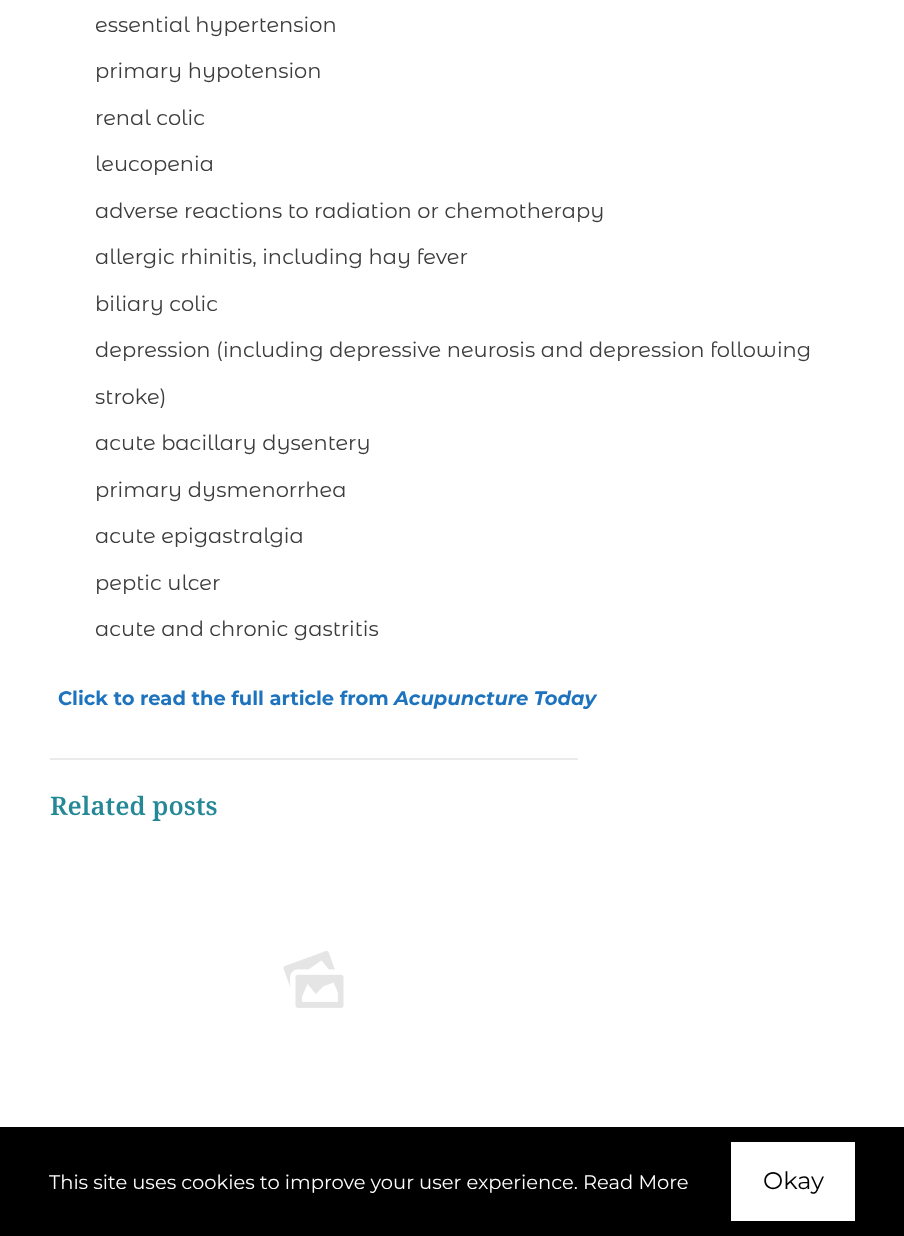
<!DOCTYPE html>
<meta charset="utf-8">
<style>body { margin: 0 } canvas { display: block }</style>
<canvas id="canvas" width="904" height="1236"></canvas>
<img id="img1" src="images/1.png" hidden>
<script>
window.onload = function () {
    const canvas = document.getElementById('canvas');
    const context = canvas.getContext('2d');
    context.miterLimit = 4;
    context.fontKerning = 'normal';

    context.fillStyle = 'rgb(255, 255, 255)';
    context.fillRect(0, 0, 904, 1236);
    context.fillStyle = 'rgb(235, 235, 235)';
    context.fillRect(50, 758, 528, 2);
    context.drawImage(document.getElementById('img1'), 283, 951, 61, 57);
    context.fillStyle = 'rgb(0, 0, 0)';
    context.fillRect(0, 1127, 904, 109);
    context.fillStyle = 'rgb(255, 255, 255)';
    context.fillRect(731, 1142, 124, 79);
    context.font = '21px Montserrat Alternates';
    context.fillStyle = 'rgb(61, 61, 61)';
    context.fillText('essential hypertension', 95, 32);
    context.fillText('primary hypotension', 95, 78);
    context.fillText('renal colic', 95, 125);
    context.fillText('leucopenia', 95, 171);
    context.fillText('adverse reactions to radiation or chemotherapy', 95, 218);
    context.fillText('allergic rhinitis, including hay fever', 95, 264);
    context.fillText('biliary colic', 95, 311);
    context.fillText('depression (including depressive neurosis and depression following', 95, 357);
    context.fillText('stroke)', 95, 404);
    context.fillText('acute bacillary dysentery', 95, 450);
    context.fillText('primary dysmenorrhea', 95, 497);
    context.fillText('acute epigastralgia', 95, 543);
    context.fillText('peptic ulcer', 95, 590);
    context.fillText('acute and chronic gastritis', 95, 636);
    context.font = 'bold 19.5px Montserrat';
    context.fillStyle = 'rgb(30, 115, 190)';
    context.fillText('Click to read the full article from', 58, 705);
    context.font = 'italic bold 19.5px Montserrat';
    context.fillText('Acupuncture Today', 394, 705);
    context.font = '600 25.5px Noto Serif';
    context.fillStyle = 'rgb(37, 136, 151)';
    context.fillText('Related posts', 50, 815);
    context.font = '19.5px Montserrat';
    context.fillStyle = 'rgb(255, 255, 255)';
    context.fillText('This site uses cookies to improve your user experience. Read More', 49, 1189);
    context.font = '24px Montserrat';
    context.fillStyle = 'rgb(0, 0, 0)';
    context.fillText('Okay', 763, 1189);
};
</script>
